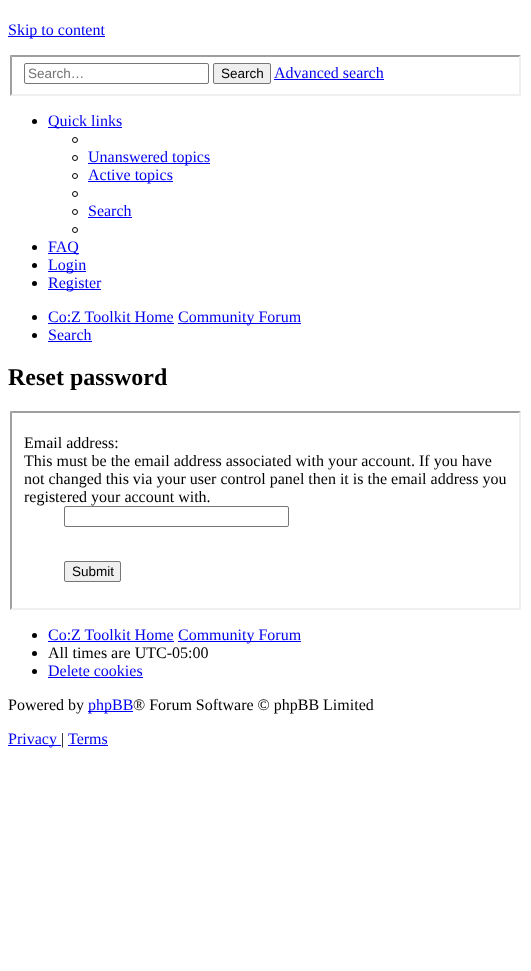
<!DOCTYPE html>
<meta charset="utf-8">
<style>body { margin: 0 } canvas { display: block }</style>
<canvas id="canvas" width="531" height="971"></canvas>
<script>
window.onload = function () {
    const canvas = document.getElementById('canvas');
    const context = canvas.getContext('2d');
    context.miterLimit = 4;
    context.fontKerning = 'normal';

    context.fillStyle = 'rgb(255, 255, 255)';
    context.fillRect(0, 0, 531, 971);
    context.fillStyle = 'rgb(0, 0, 238)';
    context.fillRect(8, 36, 97, 1);
    context.fillStyle = 'rgb(159, 159, 159)';
    context.beginPath();
    context.moveTo(10, 55);
    context.lineTo(521, 55);
    context.lineTo(519, 57);
    context.lineTo(12, 57);
    context.closePath();
    context.fill();
    context.fillStyle = 'rgb(239, 239, 239)';
    context.beginPath();
    context.moveTo(521, 55);
    context.lineTo(521, 96);
    context.lineTo(519, 94);
    context.lineTo(519, 57);
    context.closePath();
    context.fill();
    context.beginPath();
    context.moveTo(521, 96);
    context.lineTo(10, 96);
    context.lineTo(12, 94);
    context.lineTo(519, 94);
    context.closePath();
    context.fill();
    context.fillStyle = 'rgb(159, 159, 159)';
    context.beginPath();
    context.moveTo(10, 96);
    context.lineTo(10, 55);
    context.lineTo(12, 57);
    context.lineTo(12, 94);
    context.closePath();
    context.fill();
    context.beginPath();
    context.roundRect(24.5, 63.5, 184, 20, 1.5);
    context.strokeStyle = 'rgb(118, 118, 118)';
    context.stroke();
    context.fillStyle = 'rgb(239, 239, 239)';
    context.beginPath();
    context.roundRect(213.5, 63.5, 57, 20, 1.5);
    context.fill();
    context.stroke();
    context.fillStyle = 'rgb(0, 0, 238)';
    context.fillRect(274, 79, 110, 1);
    context.fillStyle = 'rgb(0, 0, 0)';
    context.beginPath();
    context.arc(34.5, 121.5, 2.5, 0, 2 * Math.PI);
    context.fill();
    context.fillStyle = 'rgb(0, 0, 238)';
    context.fillRect(48, 127, 74, 1);
    context.beginPath();
    context.arc(75, 140, 2.5, 0, 2 * Math.PI);
    context.strokeStyle = 'rgb(0, 0, 0)';
    context.stroke();
    context.beginPath();
    context.arc(75, 158, 2.5, 0, 2 * Math.PI);
    context.stroke();
    context.fillRect(88, 163, 122, 1);
    context.beginPath();
    context.arc(75, 176, 2.5, 0, 2 * Math.PI);
    context.stroke();
    context.fillRect(88, 181, 85, 1);
    context.beginPath();
    context.arc(75, 194, 2.5, 0, 2 * Math.PI);
    context.stroke();
    context.beginPath();
    context.arc(75, 212, 2.5, 0, 2 * Math.PI);
    context.stroke();
    context.fillRect(88, 217, 44, 1);
    context.beginPath();
    context.arc(75, 230, 2.5, 0, 2 * Math.PI);
    context.stroke();
    context.fillStyle = 'rgb(0, 0, 0)';
    context.beginPath();
    context.arc(34.5, 247.5, 2.5, 0, 2 * Math.PI);
    context.fill();
    context.fillStyle = 'rgb(0, 0, 238)';
    context.fillRect(48, 253, 31, 1);
    context.fillStyle = 'rgb(0, 0, 0)';
    context.beginPath();
    context.arc(34.5, 265.5, 2.5, 0, 2 * Math.PI);
    context.fill();
    context.fillStyle = 'rgb(0, 0, 238)';
    context.fillRect(48, 271, 38, 1);
    context.fillStyle = 'rgb(0, 0, 0)';
    context.beginPath();
    context.arc(34.5, 283.5, 2.5, 0, 2 * Math.PI);
    context.fill();
    context.fillStyle = 'rgb(0, 0, 238)';
    context.fillRect(48, 289, 53, 1);
    context.fillStyle = 'rgb(0, 0, 0)';
    context.beginPath();
    context.arc(34.5, 317.5, 2.5, 0, 2 * Math.PI);
    context.fill();
    context.fillStyle = 'rgb(0, 0, 238)';
    context.fillRect(48, 323, 126, 1);
    context.fillRect(178, 323, 123, 1);
    context.fillStyle = 'rgb(0, 0, 0)';
    context.beginPath();
    context.arc(34.5, 335.5, 2.5, 0, 2 * Math.PI);
    context.fill();
    context.fillStyle = 'rgb(0, 0, 238)';
    context.fillRect(48, 341, 44, 1);
    context.fillStyle = 'rgb(159, 159, 159)';
    context.beginPath();
    context.moveTo(10, 411);
    context.lineTo(521, 411);
    context.lineTo(519, 413);
    context.lineTo(12, 413);
    context.closePath();
    context.fill();
    context.fillStyle = 'rgb(239, 239, 239)';
    context.beginPath();
    context.moveTo(521, 411);
    context.lineTo(521, 610);
    context.lineTo(519, 608);
    context.lineTo(519, 413);
    context.closePath();
    context.fill();
    context.beginPath();
    context.moveTo(521, 610);
    context.lineTo(10, 610);
    context.lineTo(12, 608);
    context.lineTo(519, 608);
    context.closePath();
    context.fill();
    context.fillStyle = 'rgb(159, 159, 159)';
    context.beginPath();
    context.moveTo(10, 610);
    context.lineTo(10, 411);
    context.lineTo(12, 413);
    context.lineTo(12, 608);
    context.closePath();
    context.fill();
    context.beginPath();
    context.roundRect(64.5, 506.5, 224, 20, 1.5);
    context.strokeStyle = 'rgb(118, 118, 118)';
    context.stroke();
    context.fillStyle = 'rgb(239, 239, 239)';
    context.beginPath();
    context.roundRect(64.5, 561.5, 56, 20, 1.5);
    context.fill();
    context.stroke();
    context.fillStyle = 'rgb(0, 0, 0)';
    context.beginPath();
    context.arc(34.5, 635.5, 2.5, 0, 2 * Math.PI);
    context.fill();
    context.fillStyle = 'rgb(0, 0, 238)';
    context.fillRect(48, 641, 126, 1);
    context.fillRect(178, 641, 123, 1);
    context.fillStyle = 'rgb(0, 0, 0)';
    context.beginPath();
    context.arc(34.5, 653.5, 2.5, 0, 2 * Math.PI);
    context.fill();
    context.beginPath();
    context.arc(34.5, 671.5, 2.5, 0, 2 * Math.PI);
    context.fill();
    context.fillStyle = 'rgb(0, 0, 238)';
    context.fillRect(48, 677, 95, 1);
    context.fillRect(88, 711, 45, 1);
    context.fillRect(8, 745, 53, 1);
    context.fillRect(68, 745, 40, 1);
    context.font = '16px Liberation Serif';
    context.fillText('Skip to content', 8, 35);
    context.font = '13.5px Liberation Sans';
    context.fillStyle = 'rgb(117, 117, 117)';
    context.fillText('Search…', 28, 78);
    context.fillStyle = 'rgb(0, 0, 0)';
    context.fillText('Search', 221, 78);
    context.font = '16px Liberation Serif';
    context.fillStyle = 'rgb(0, 0, 238)';
    context.fillText('Advanced search', 274, 78);
    context.fillText('Quick links', 48, 126);
    context.fillText('Unanswered topics', 88, 162);
    context.fillText('Active topics', 88, 180);
    context.fillText('Search', 88, 216);
    context.fillText('FAQ', 48, 252);
    context.fillText('Login', 48, 270);
    context.fillText('Register', 48, 288);
    context.fillText('Co:Z Toolkit Home', 48, 322);
    context.fillText('Community Forum', 178, 322);
    context.fillText('Search', 48, 340);
    context.font = 'bold 24px Liberation Serif';
    context.fillStyle = 'rgb(0, 0, 0)';
    context.fillText('Reset password', 8, 385);
    context.font = '16px Liberation Serif';
    context.fillText('Email address:', 24, 448);
    context.fillText('This must be the email address associated with your account. If you have', 24, 466);
    context.fillText('not changed this via your user control panel then it is the email address you', 24, 484);
    context.fillText('registered your account with.', 24, 502);
    context.font = '13.5px Liberation Sans';
    context.fillText('Submit', 72, 576);
    context.font = '16px Liberation Serif';
    context.fillStyle = 'rgb(0, 0, 238)';
    context.fillText('Co:Z Toolkit Home', 48, 640);
    context.fillText('Community Forum', 178, 640);
    context.fillStyle = 'rgb(0, 0, 0)';
    context.fillText('All times are UTC-05:00', 48, 658);
    context.fillStyle = 'rgb(0, 0, 238)';
    context.fillText('Delete cookies', 48, 676);
    context.fillStyle = 'rgb(0, 0, 0)';
    context.fillText('Powered by', 8, 710);
    context.fillStyle = 'rgb(0, 0, 238)';
    context.fillText('phpBB', 88, 710);
    context.fillStyle = 'rgb(0, 0, 0)';
    context.fillText('® Forum Software © phpBB Limited', 133, 710);
    context.fillStyle = 'rgb(0, 0, 238)';
    context.fillText('Privacy', 8, 744);
    context.fillStyle = 'rgb(0, 0, 0)';
    context.fillText('|', 61, 744);
    context.fillStyle = 'rgb(0, 0, 238)';
    context.fillText('Terms', 68, 744);
};
</script>
